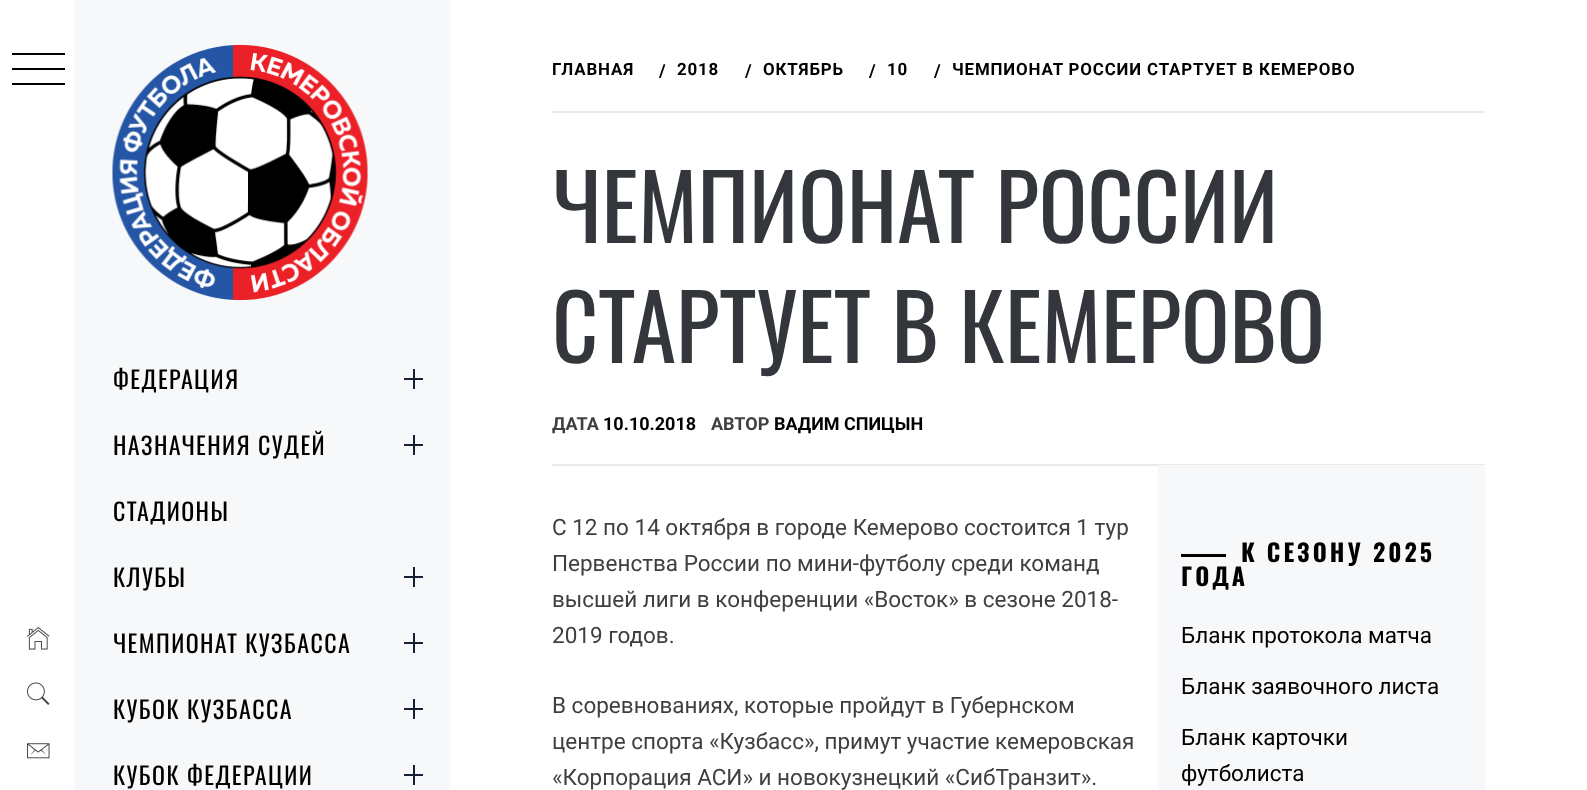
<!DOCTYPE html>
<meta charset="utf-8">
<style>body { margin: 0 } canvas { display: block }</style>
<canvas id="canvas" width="1587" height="790"></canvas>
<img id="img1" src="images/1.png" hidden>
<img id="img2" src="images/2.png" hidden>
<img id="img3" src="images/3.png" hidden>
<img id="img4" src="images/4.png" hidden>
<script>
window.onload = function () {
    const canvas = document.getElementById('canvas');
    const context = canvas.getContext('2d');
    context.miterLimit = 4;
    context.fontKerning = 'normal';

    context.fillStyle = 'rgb(255, 255, 255)';
    context.fillRect(0, 0, 1587, 790);
    context.fillStyle = 'rgb(0, 0, 0)';
    context.fillRect(12, 53, 53, 2);
    context.fillRect(12, 68, 53, 2);
    context.fillRect(12, 83, 53, 2);
    context.drawImage(document.getElementById('img1'), 27, 627, 23, 23);
    context.drawImage(document.getElementById('img2'), 27, 682, 23, 23);
    context.drawImage(document.getElementById('img3'), 27, 743, 23, 16);
    context.fillStyle = 'rgb(246, 248, 249)';
    context.fillRect(75, 0, 375, 790);
    context.drawImage(document.getElementById('img4'), 112, 45, 256, 255);
    context.fillStyle = 'rgb(21, 32, 53)';
    context.fillRect(404, 378, 19, 2);
    context.fillRect(413, 369, 2, 20);
    context.fillRect(404, 444, 19, 2);
    context.fillRect(413, 435, 2, 20);
    context.fillRect(404, 576, 19, 2);
    context.fillRect(413, 567, 2, 20);
    context.fillRect(404, 642, 19, 2);
    context.fillRect(413, 633, 2, 20);
    context.fillRect(404, 708, 19, 2);
    context.fillRect(413, 699, 2, 20);
    context.fillRect(404, 774, 19, 2);
    context.fillRect(413, 765, 2, 20);
    context.fillStyle = 'rgb(234, 234, 234)';
    context.fillRect(552, 464, 933, 2);
    context.fillRect(552, 111, 933, 2);
    context.fillStyle = 'rgb(246, 248, 249)';
    context.fillRect(1158, 465, 327, 325);
    context.fillStyle = 'rgb(0, 0, 0)';
    context.fillRect(1181, 554, 45, 3);
    context.letterSpacing = '1.4px';
    context.font = '24px Oswald';
    context.fillText('ФЕДЕРАЦИЯ', 113, 389);
    context.fillText('НАЗНАЧЕНИЯ СУДЕЙ', 113, 455);
    context.fillText('СТАДИОНЫ', 113, 521);
    context.fillText('КЛУБЫ', 113, 587);
    context.fillText('ЧЕМПИОНАТ КУЗБАССА', 113, 653);
    context.fillText('КУБОК КУЗБАССА', 113, 719);
    context.fillText('КУБОК ФЕДЕРАЦИИ', 113, 785);
    context.letterSpacing = '0.85px';
    context.font = 'bold 16.9px Roboto';
    context.fillText('ГЛАВНАЯ', 552, 75);
    context.font = 'bold 18px Roboto';
    context.fillText('/', 659, 77);
    context.font = 'bold 16.9px Roboto';
    context.fillText('2018', 677, 75);
    context.font = 'bold 18px Roboto';
    context.fillText('/', 745, 77);
    context.font = 'bold 16.9px Roboto';
    context.fillText('ОКТЯБРЬ', 763, 75);
    context.font = 'bold 18px Roboto';
    context.fillText('/', 869, 77);
    context.font = 'bold 16.9px Roboto';
    context.fillText('10', 887, 75);
    context.font = 'bold 18px Roboto';
    context.fillText('/', 934, 77);
    context.font = 'bold 16.9px Roboto';
    context.fillText('ЧЕМПИОНАТ РОССИИ СТАРТУЕТ В КЕМЕРОВО', 952, 75);
    context.letterSpacing = '0px';
    context.font = '90px Oswald';
    context.fillStyle = 'rgb(51, 54, 59)';
    context.fillText('ЧЕМПИОНАТ РОССИИ', 552, 243);
    context.fillText('СТАРТУЕТ В КЕМЕРОВО', 552, 363);
    context.font = 'bold 18px Roboto';
    context.fillStyle = 'rgb(62, 63, 64)';
    context.fillText('ДАТА', 552, 430);
    context.fillStyle = 'rgb(0, 0, 0)';
    context.fillText('10.10.2018', 603, 430);
    context.fillStyle = 'rgb(62, 63, 64)';
    context.fillText('АВТОР', 711, 430);
    context.fillStyle = 'rgb(0, 0, 0)';
    context.fillText('ВАДИМ СПИЦЫН', 774, 430);
    context.font = '22.5px Roboto';
    context.fillStyle = 'rgb(62, 63, 64)';
    context.fillText('С 12 по 14 октября в городе Кемерово состоится 1 тур', 552, 535);
    context.fillText('Первенства России по мини-футболу среди команд', 552, 571);
    context.fillText('высшей лиги в конференции «Восток» в сезоне 2018-', 552, 607);
    context.fillText('2019 годов.', 552, 643);
    context.fillText('В соревнованиях, которые пройдут в Губернском', 552, 713);
    context.fillText('центре спорта «Кузбасс», примут участие кемеровская', 552, 749);
    context.fillText('«Корпорация АСИ» и новокузнецкий «СибТранзит».', 552, 785);
    context.letterSpacing = '3px';
    context.font = 'bold 24px Oswald';
    context.fillStyle = 'rgb(0, 0, 0)';
    context.fillText('К СЕЗОНУ 2025', 1241, 562);
    context.fillText('ГОДА', 1181, 586);
    context.letterSpacing = '0px';
    context.font = '22.5px Roboto';
    context.fillText('Бланк протокола матча', 1181, 643);
    context.fillText('Бланк заявочного листа', 1181, 694);
    context.fillText('Бланк карточки', 1181, 745);
    context.fillText('футболиста', 1181, 781);
};
</script>
